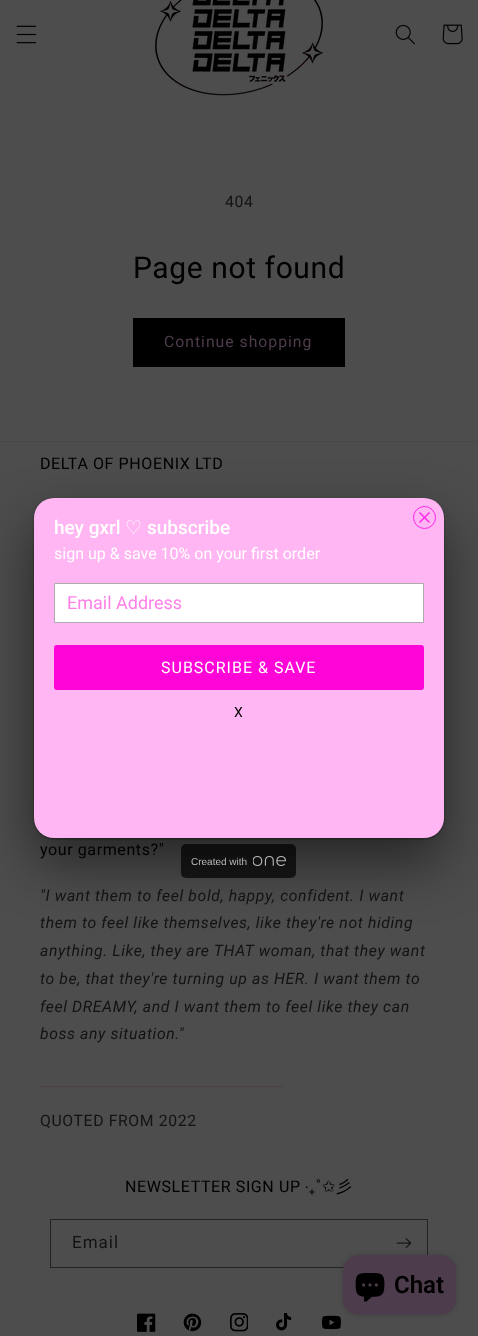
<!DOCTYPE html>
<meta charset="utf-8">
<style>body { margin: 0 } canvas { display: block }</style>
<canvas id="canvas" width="478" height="1336"></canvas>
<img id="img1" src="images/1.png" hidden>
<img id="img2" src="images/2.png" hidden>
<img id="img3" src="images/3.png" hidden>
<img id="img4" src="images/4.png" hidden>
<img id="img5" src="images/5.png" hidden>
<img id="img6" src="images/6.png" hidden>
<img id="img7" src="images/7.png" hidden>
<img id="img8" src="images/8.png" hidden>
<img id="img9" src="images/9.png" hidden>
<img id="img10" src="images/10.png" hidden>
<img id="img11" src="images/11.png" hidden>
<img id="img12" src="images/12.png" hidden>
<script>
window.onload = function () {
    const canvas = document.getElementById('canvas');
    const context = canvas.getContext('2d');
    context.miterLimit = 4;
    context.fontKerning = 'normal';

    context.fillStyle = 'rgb(77, 77, 77)';
    context.fillRect(0, 0, 478, 1336);
    context.drawImage(document.getElementById('img1'), 16, 25, 20, 19);
    context.drawImage(document.getElementById('img2'), 155, 0, 168, 96);
    context.drawImage(document.getElementById('img3'), 395, 24, 20, 21);
    context.drawImage(document.getElementById('img4'), 442, 24, 21, 21);
    context.fillStyle = 'rgb(0, 0, 0)';
    context.fillRect(133, 318, 212, 49);
    context.fillStyle = 'rgb(71, 71, 71)';
    context.fillRect(0, 441, 478, 1);
    context.fillStyle = 'rgb(77, 63, 76)';
    context.fillRect(40, 1086, 244, 1);
    context.strokeStyle = 'rgb(35, 35, 35)';
    context.strokeRect(50.5, 1219.5, 377, 48);
    context.drawImage(document.getElementById('img5'), 396, 1238, 16, 11);
    context.drawImage(document.getElementById('img6'), 137, 1313, 19, 19);
    context.drawImage(document.getElementById('img7'), 183, 1313, 19, 19);
    context.drawImage(document.getElementById('img8'), 230, 1313, 18, 19);
    context.drawImage(document.getElementById('img9'), 276, 1313, 16, 18);
    context.drawImage(document.getElementById('img10'), 322, 1315, 19, 15);
    context.fillStyle = 'rgba(0, 0, 0, 0.4)';
    context.filter = 'blur(1px)';
    context.beginPath();
    context.roundRect(34, 499, 410, 340, 20);
    context.fill();
    context.filter = 'none';
    context.fillStyle = 'rgba(0, 0, 0, 0.5)';
    context.filter = 'blur(27.5px)';
    context.beginPath();
    context.roundRect(34, 523, 410, 340, 20);
    context.fill();
    context.filter = 'none';
    context.fillStyle = 'rgb(255, 182, 243)';
    context.beginPath();
    context.roundRect(34, 498, 410, 340, 20);
    context.fill();
    context.fillStyle = 'rgb(255, 255, 255)';
    context.beginPath();
    context.rect(54.5, 583.5, 369, 39);
    context.fill();
    context.strokeStyle = 'rgb(172, 172, 172)';
    context.stroke();
    context.fillStyle = 'rgb(255, 5, 216)';
    context.beginPath();
    context.roundRect(55.5, 646.5, 367, 42, 1.5);
    context.fill();
    context.strokeStyle = 'rgb(255, 5, 216)';
    context.lineWidth = 3;
    context.stroke();
    context.beginPath();
    context.arc(424.5, 517.5, 11, 0, 2 * Math.PI);
    context.strokeStyle = 'rgb(255, 36, 234)';
    context.lineWidth = 1;
    context.stroke();
    context.fillStyle = 'rgb(255, 36, 234)';
    context.beginPath();
    context.moveTo(429, 512);
    context.lineTo(430, 513);
    context.lineTo(420, 523);
    context.lineTo(419, 522);
    context.closePath();
    context.fill();
    context.beginPath();
    context.moveTo(419, 513);
    context.lineTo(420, 512);
    context.lineTo(430, 522);
    context.lineTo(429, 523);
    context.closePath();
    context.fill();
    context.fillStyle = 'rgba(0, 0, 0, 0.7)';
    context.beginPath();
    context.roundRect(181, 844, 115, 34, 5);
    context.fill();
    context.drawImage(document.getElementById('img11'), 253, 856, 33, 10);
    context.fillStyle = 'rgba(0, 0, 0, 0.15)';
    context.filter = 'blur(2.5px)';
    context.beginPath();
    context.roundRect(343, 1255, 113, 60, 16);
    context.fill();
    context.filter = 'none';
    context.fillStyle = 'rgb(77, 60, 76)';
    context.beginPath();
    context.roundRect(343, 1255, 113, 60, 16);
    context.fill();
    context.drawImage(document.getElementById('img12'), 355, 1273, 30, 29);
    context.letterSpacing = '0.63px';
    context.font = '15.75px Roboto';
    context.fillStyle = 'rgb(19, 19, 19)';
    context.fillText('404', 225, 207);
    context.letterSpacing = '0.6px';
    context.font = '30px Roboto';
    context.fillStyle = 'rgb(0, 0, 0)';
    context.fillText('Page not found', 133, 278);
    context.letterSpacing = '1px';
    context.font = '15.75px Roboto';
    context.fillStyle = 'rgb(77, 60, 76)';
    context.fillText('Continue shopping', 164, 347);
    context.letterSpacing = '0.6px';
    context.font = '16px Roboto';
    context.fillStyle = 'rgb(0, 0, 0)';
    context.fillText('DELTA OF PHOENIX LTD', 40, 469);
    context.fillText('your garments?"', 40, 855);
    context.letterSpacing = '0.63px';
    context.font = 'italic 15.75px Roboto';
    context.fillStyle = 'rgb(19, 19, 19)';
    context.fillText('"I want them to feel bold, happy, confident. I want', 40, 901);
    context.fillText('them to feel like themselves, like they\'re not hiding', 40, 928);
    context.fillText('anything. Like, they are THAT woman, that they want', 40, 956);
    context.fillText('to be, that they\'re turning up as HER. I want them to', 40, 984);
    context.fillText('feel DREAMY, and I want them to feel like they can', 40, 1012);
    context.fillText('boss any situation."', 40, 1039);
    context.font = '15.75px Roboto';
    context.fillText('QUOTED FROM 2022', 40, 1126);
    context.letterSpacing = '0.6px';
    context.font = '16px Roboto';
    context.fillStyle = 'rgb(0, 0, 0)';
    context.fillText('NEWSLETTER SIGN UP ‧₊˚', 125, 1192);
    context.font = '16px DejaVu Sans';
    context.fillText('✩', 322, 1192);
    context.font = '500 16px WenQuanYi Zen Hei';
    context.fillText('彡', 336, 1192);
    context.letterSpacing = '1px';
    context.font = '17px Roboto';
    context.fillStyle = 'rgb(19, 19, 19)';
    context.fillText('Email', 72, 1248);
    context.letterSpacing = '0px';
    context.font = '500 19px Roboto';
    context.fillStyle = 'rgb(255, 255, 255)';
    context.fillText('hey gxrl', 54, 534);
    context.font = '19px DejaVu Sans';
    context.fillText('♡', 125, 534);
    context.font = '500 19px Roboto';
    context.fillText('subscribe', 147, 534);
    context.font = '16px Roboto';
    context.fillText('sign up & save 10% on your first order', 54, 559);
    context.font = '18px Roboto';
    context.fillStyle = 'rgb(255, 128, 231)';
    context.fillText('Email Address', 67, 609);
    context.letterSpacing = '1px';
    context.font = '16px Roboto';
    context.fillStyle = 'rgb(255, 255, 255)';
    context.fillText('SUBSCRIBE & SAVE', 161, 673);
    context.font = '14px Roboto';
    context.fillStyle = 'rgb(0, 0, 0)';
    context.fillText('X', 234, 717);
    context.letterSpacing = '0px';
    context.font = '10px Liberation Sans';
    context.fillStyle = 'rgb(184, 184, 184)';
    context.fillText('Created with', 191, 865);
    context.font = '600 24px Roboto';
    context.fillStyle = 'rgb(0, 0, 0)';
    context.fillText('Chat', 394, 1293);
};
</script>
